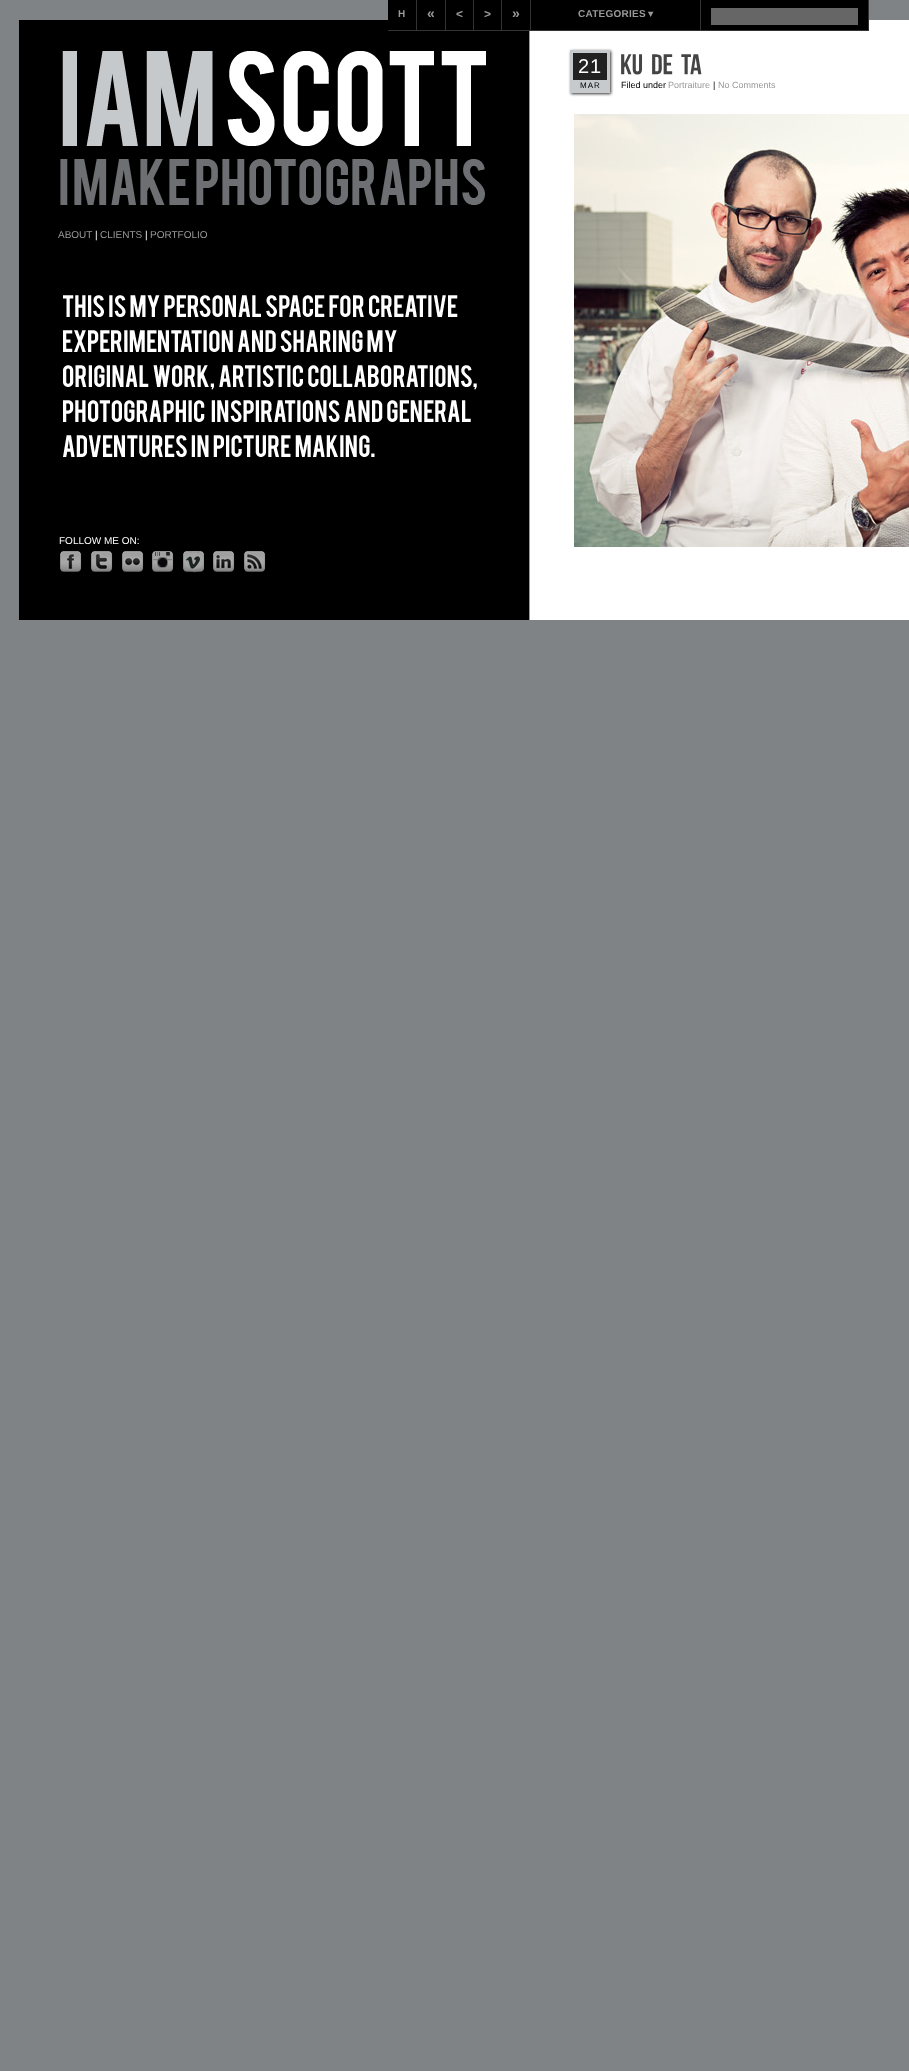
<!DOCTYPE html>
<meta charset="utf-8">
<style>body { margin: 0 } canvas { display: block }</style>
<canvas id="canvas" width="909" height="2071"></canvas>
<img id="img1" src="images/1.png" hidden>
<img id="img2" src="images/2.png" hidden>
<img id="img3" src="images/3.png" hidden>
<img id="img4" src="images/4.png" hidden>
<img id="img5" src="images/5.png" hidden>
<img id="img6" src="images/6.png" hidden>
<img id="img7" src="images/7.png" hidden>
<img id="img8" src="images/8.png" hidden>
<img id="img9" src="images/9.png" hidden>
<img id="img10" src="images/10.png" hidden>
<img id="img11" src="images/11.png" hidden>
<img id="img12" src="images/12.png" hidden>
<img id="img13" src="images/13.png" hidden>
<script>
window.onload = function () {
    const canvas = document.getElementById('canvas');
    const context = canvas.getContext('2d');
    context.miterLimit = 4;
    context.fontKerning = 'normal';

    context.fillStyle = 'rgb(128, 131, 134)';
    context.fillRect(0, 0, 909, 2071);
    context.fillStyle = 'rgb(255, 255, 255)';
    context.fillRect(530, 20, 379, 600);
    context.fillStyle = 'rgb(0, 0, 0)';
    context.fillRect(19, 20, 510, 600);
    context.fillRect(388, 0, 480, 30);
    context.fillStyle = 'rgb(51, 51, 51)';
    context.fillRect(388, 30, 481, 1);
    context.fillRect(416, 0, 1, 30);
    context.fillRect(445, 0, 1, 30);
    context.fillRect(473, 0, 1, 30);
    context.fillRect(501, 0, 1, 30);
    context.fillRect(530, 0, 1, 30);
    context.fillRect(700, 0, 1, 30);
    context.fillRect(868, 0, 1, 30);
    context.fillStyle = 'rgb(102, 102, 102)';
    context.fillRect(711, 8, 147, 17);
    context.fillStyle = 'rgb(51, 51, 51)';
    context.filter = 'blur(1.5px)';
    context.beginPath();
    context.rect(571, 51, 40, 43);
    context.fill();
    context.filter = 'none';
    context.fillStyle = 'rgb(199, 202, 204)';
    context.fillRect(570, 50, 40, 43);
    context.fillStyle = 'rgb(34, 34, 34)';
    context.fillRect(573, 53, 34, 27);
    context.drawImage(document.getElementById('img1'), 621, 54, 22, 21);
    context.drawImage(document.getElementById('img2'), 652, 54, 21, 21);
    context.drawImage(document.getElementById('img3'), 681, 54, 21, 21);
    context.drawImage(document.getElementById('img4'), 574, 114, 335, 433);
    context.fillStyle = 'rgb(153, 153, 153)';
    context.fillRect(529, 31, 1, 589);
    context.drawImage(document.getElementById('img5'), 60, 51, 426, 154);
    context.drawImage(document.getElementById('img6'), 63, 295, 414, 162);
    context.drawImage(document.getElementById('img7'), 60, 551, 22, 21);
    context.drawImage(document.getElementById('img8'), 91, 551, 22, 21);
    context.drawImage(document.getElementById('img9'), 122, 551, 22, 21);
    context.drawImage(document.getElementById('img10'), 152, 551, 22, 21);
    context.drawImage(document.getElementById('img11'), 183, 551, 21, 22);
    context.drawImage(document.getElementById('img12'), 213, 551, 22, 21);
    context.drawImage(document.getElementById('img13'), 244, 551, 22, 21);
    context.letterSpacing = '0.25px';
    context.font = 'bold 10px Liberation Sans';
    context.fillText('H', 398, 17);
    context.font = 'bold 14px Liberation Sans';
    context.fillText('«', 427, 18);
    context.font = 'bold 12px Liberation Sans';
    context.fillText('<', 456, 18);
    context.fillText('>', 484, 18);
    context.font = 'bold 14px Liberation Sans';
    context.fillText('»', 512, 18);
    context.font = 'bold 10px Liberation Sans';
    context.fillText('CATEGORIES', 578, 17);
    context.font = 'bold 10px DejaVu Sans';
    context.fillText('▾', 648, 17);
    context.letterSpacing = '1px';
    context.font = '20px Liberation Sans';
    context.fillStyle = 'rgb(255, 255, 255)';
    context.fillText('21', 578, 73);
    context.font = '8px Liberation Sans';
    context.fillStyle = 'rgb(0, 0, 0)';
    context.fillText('MAR', 580, 88);
    context.letterSpacing = '0px';
    context.font = '9px Liberation Sans';
    context.fillText('Filed under', 621, 88);
    context.fillStyle = 'rgb(153, 153, 153)';
    context.fillText('Portraiture', 668, 88);
    context.fillStyle = 'rgb(0, 0, 0)';
    context.fillText('|', 713, 88);
    context.fillStyle = 'rgb(153, 153, 153)';
    context.fillText('No Comments', 718, 88);
    context.font = '10px Liberation Sans';
    context.fillText('ABOUT', 58, 238);
    context.fillStyle = 'rgb(255, 255, 255)';
    context.fillText('|', 95, 238);
    context.fillStyle = 'rgb(153, 153, 153)';
    context.fillText('CLIENTS', 100, 238);
    context.fillStyle = 'rgb(255, 255, 255)';
    context.fillText('|', 145, 238);
    context.fillStyle = 'rgb(153, 153, 153)';
    context.fillText('PORTFOLIO', 150, 238);
    context.fillStyle = 'rgb(255, 255, 255)';
    context.fillText('FOLLOW ME ON:', 59, 544);
};
</script>
